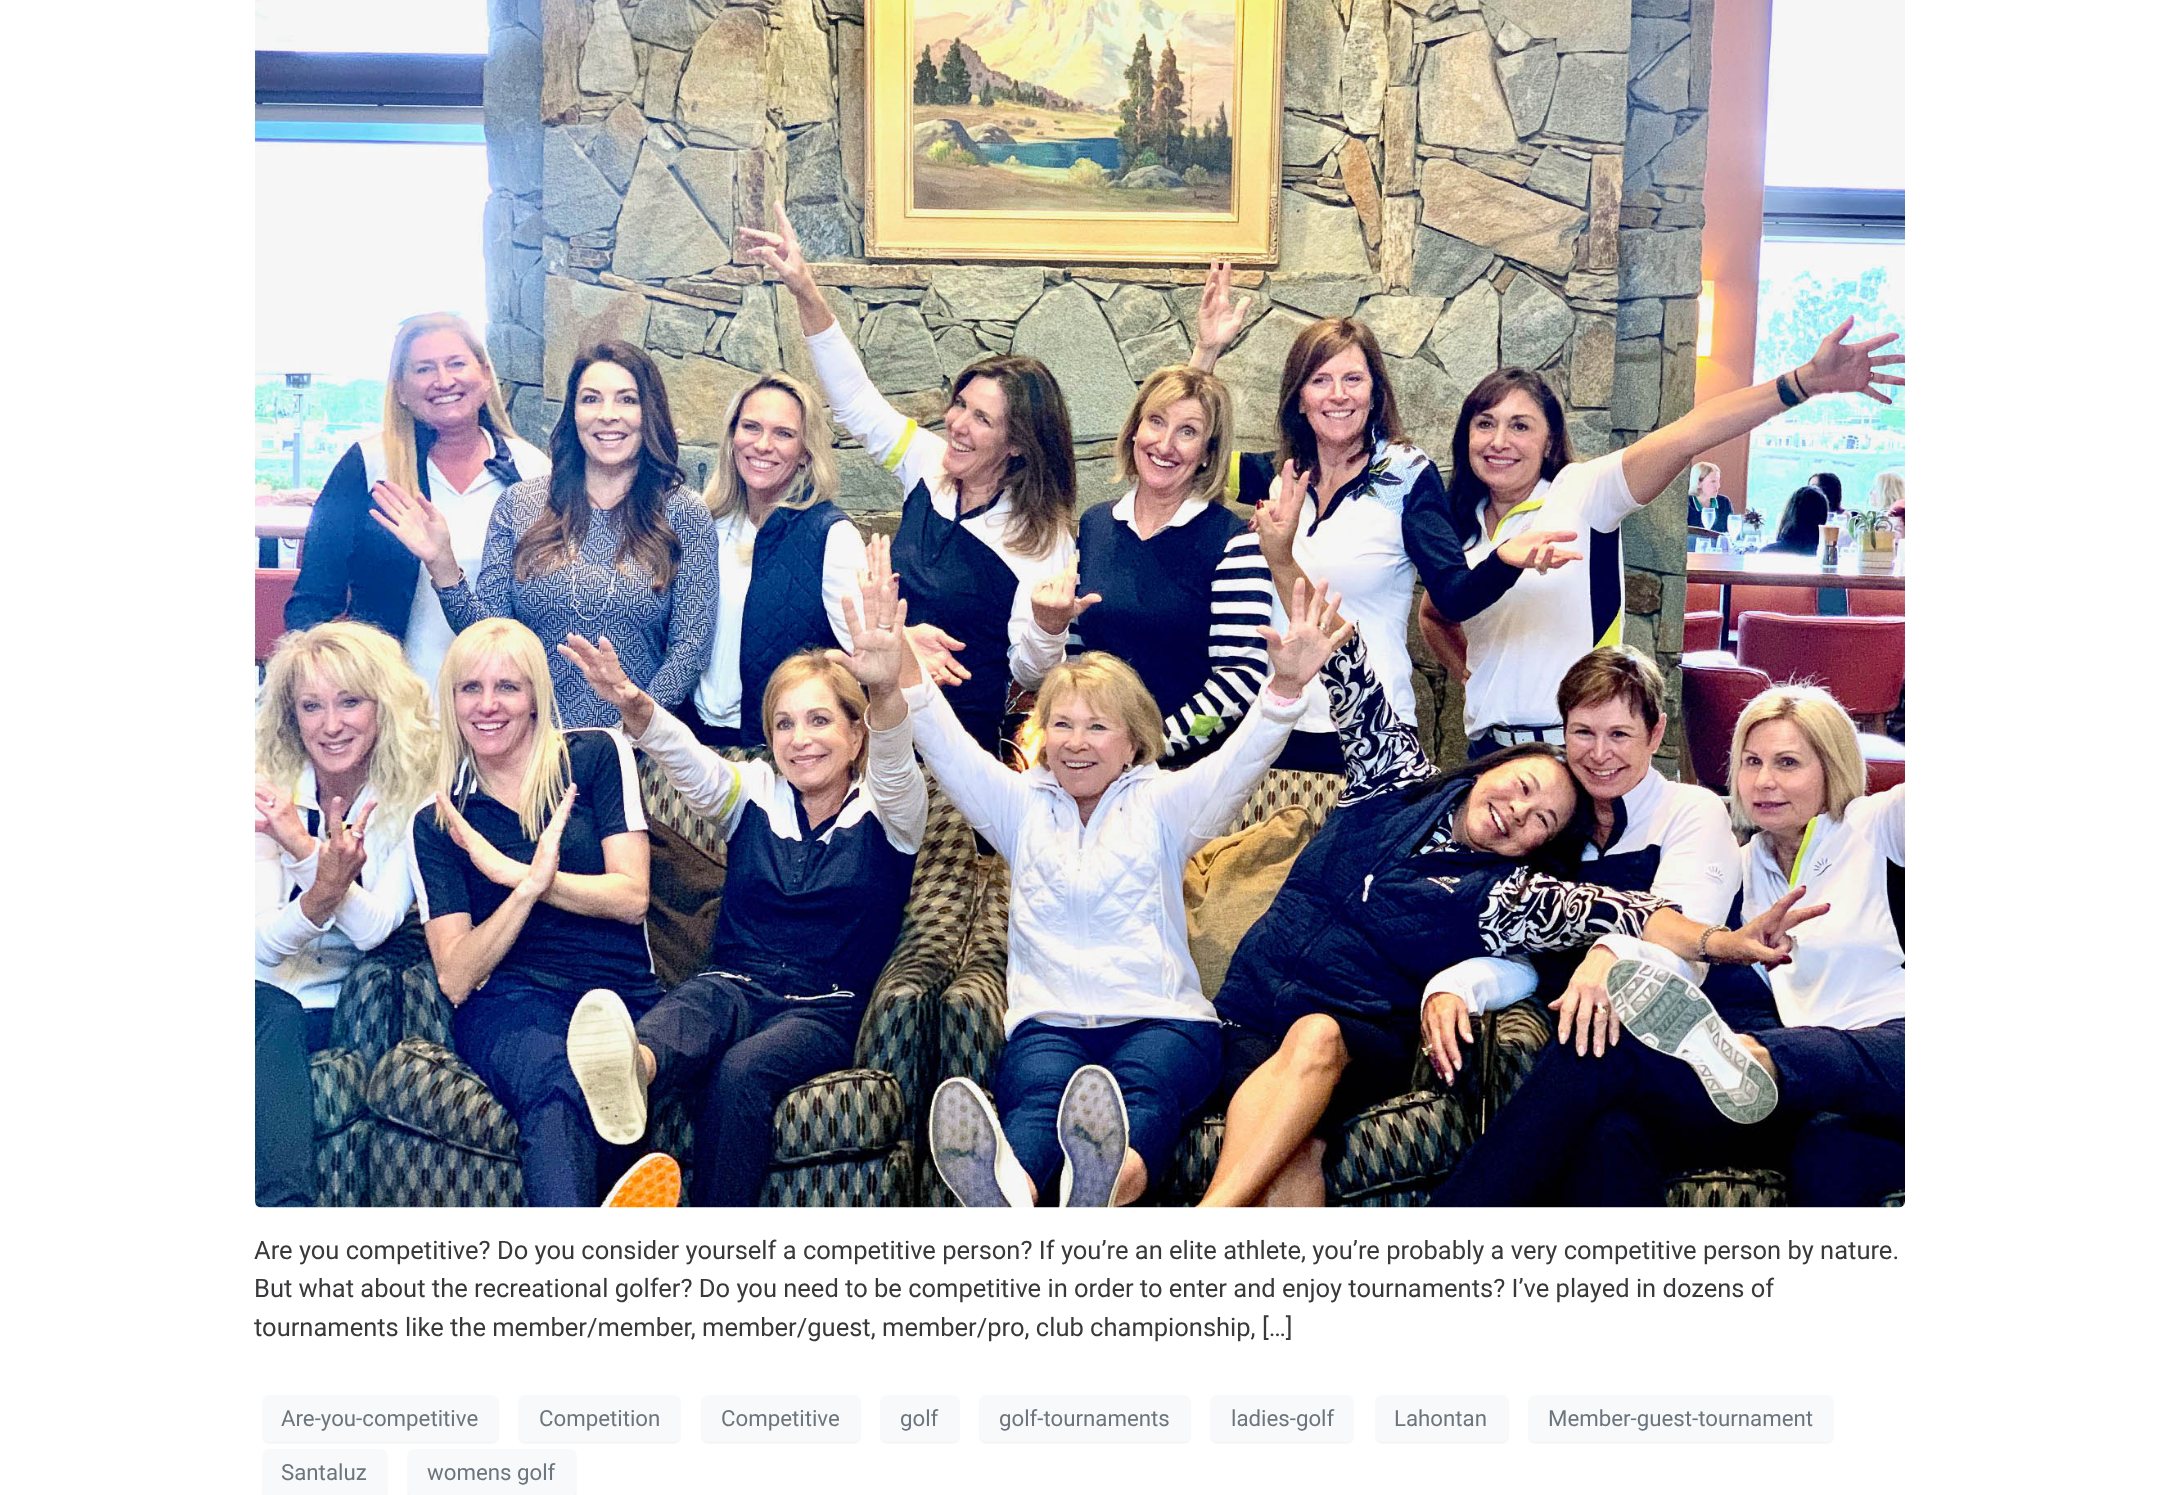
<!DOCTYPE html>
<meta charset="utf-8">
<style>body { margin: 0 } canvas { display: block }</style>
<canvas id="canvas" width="2158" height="1495"></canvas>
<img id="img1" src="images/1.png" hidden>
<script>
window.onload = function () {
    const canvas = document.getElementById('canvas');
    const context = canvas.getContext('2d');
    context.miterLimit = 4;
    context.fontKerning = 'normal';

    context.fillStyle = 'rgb(255, 255, 255)';
    context.fillRect(0, 0, 2158, 1495);
    context.drawImage(document.getElementById('img1'), 255, 0, 1650, 1208);
    context.fillStyle = 'rgba(0, 0, 0, 0.07)';
    context.filter = 'blur(1px)';
    context.beginPath();
    context.roundRect(263, 1397, 235, 46, 6);
    context.fill();
    context.filter = 'none';
    context.fillStyle = 'rgb(248, 249, 250)';
    context.beginPath();
    context.roundRect(263, 1395, 235, 47, 6);
    context.fill();
    context.fillStyle = 'rgba(0, 0, 0, 0.07)';
    context.filter = 'blur(1px)';
    context.beginPath();
    context.roundRect(519, 1397, 161, 46, 6);
    context.fill();
    context.filter = 'none';
    context.fillStyle = 'rgb(248, 249, 250)';
    context.beginPath();
    context.roundRect(519, 1395, 161, 47, 6);
    context.fill();
    context.fillStyle = 'rgba(0, 0, 0, 0.07)';
    context.filter = 'blur(1px)';
    context.beginPath();
    context.roundRect(702, 1397, 158, 46, 6);
    context.fill();
    context.filter = 'none';
    context.fillStyle = 'rgb(248, 249, 250)';
    context.beginPath();
    context.roundRect(702, 1395, 158, 47, 6);
    context.fill();
    context.fillStyle = 'rgba(0, 0, 0, 0.07)';
    context.filter = 'blur(1px)';
    context.beginPath();
    context.roundRect(881, 1397, 78, 46, 6);
    context.fill();
    context.filter = 'none';
    context.fillStyle = 'rgb(248, 249, 250)';
    context.beginPath();
    context.roundRect(881, 1395, 78, 47, 6);
    context.fill();
    context.fillStyle = 'rgba(0, 0, 0, 0.07)';
    context.filter = 'blur(1px)';
    context.beginPath();
    context.roundRect(980, 1397, 210, 46, 6);
    context.fill();
    context.filter = 'none';
    context.fillStyle = 'rgb(248, 249, 250)';
    context.beginPath();
    context.roundRect(980, 1395, 210, 47, 6);
    context.fill();
    context.fillStyle = 'rgba(0, 0, 0, 0.07)';
    context.filter = 'blur(1px)';
    context.beginPath();
    context.roundRect(1211, 1397, 142, 46, 6);
    context.fill();
    context.filter = 'none';
    context.fillStyle = 'rgb(248, 249, 250)';
    context.beginPath();
    context.roundRect(1211, 1395, 142, 47, 6);
    context.fill();
    context.fillStyle = 'rgba(0, 0, 0, 0.07)';
    context.filter = 'blur(1px)';
    context.beginPath();
    context.roundRect(1376, 1397, 132, 46, 6);
    context.fill();
    context.filter = 'none';
    context.fillStyle = 'rgb(248, 249, 250)';
    context.beginPath();
    context.roundRect(1376, 1395, 132, 47, 6);
    context.fill();
    context.fillStyle = 'rgba(0, 0, 0, 0.07)';
    context.filter = 'blur(1px)';
    context.beginPath();
    context.roundRect(1529, 1397, 304, 46, 6);
    context.fill();
    context.filter = 'none';
    context.fillStyle = 'rgb(248, 249, 250)';
    context.beginPath();
    context.roundRect(1529, 1395, 304, 47, 6);
    context.fill();
    context.fillStyle = 'rgba(0, 0, 0, 0.07)';
    context.filter = 'blur(1px)';
    context.beginPath();
    context.roundRect(263, 1451, 124, 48, 6);
    context.fill();
    context.filter = 'none';
    context.fillStyle = 'rgb(248, 249, 250)';
    context.beginPath();
    context.roundRect(263, 1449, 124, 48, 6);
    context.fill();
    context.fillStyle = 'rgba(0, 0, 0, 0.07)';
    context.filter = 'blur(1px)';
    context.beginPath();
    context.roundRect(408, 1451, 168, 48, 6);
    context.fill();
    context.filter = 'none';
    context.fillStyle = 'rgb(248, 249, 250)';
    context.beginPath();
    context.roundRect(408, 1449, 168, 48, 6);
    context.fill();
    context.font = '25.5px Roboto';
    context.fillStyle = 'rgb(57, 57, 59)';
    context.fillText('Are you competitive? Do you consider yourself a competitive person? If you’re an elite athlete, you’re probably a very competitive person by nature.', 254, 1259);
    context.fillText('But what about the recreational golfer? Do you need to be competitive in order to enter and enjoy tournaments? I’ve played in dozens of', 254, 1297);
    context.fillText('tournaments like the member/member, member/guest, member/pro, club championship, […]', 254, 1336);
    context.font = '22.25px Roboto';
    context.fillStyle = 'rgb(108, 117, 125)';
    context.fillText('Are-you-competitive', 281, 1426);
    context.fillText('Competition', 539, 1426);
    context.fillText('Competitive', 721, 1426);
    context.fillText('golf', 900, 1426);
    context.fillText('golf-tournaments', 999, 1426);
    context.fillText('ladies-golf', 1231, 1426);
    context.fillText('Lahontan', 1394, 1426);
    context.fillText('Member-guest-tournament', 1548, 1426);
    context.fillText('Santaluz', 281, 1480);
    context.fillText('womens golf', 427, 1480);
};
</script>
